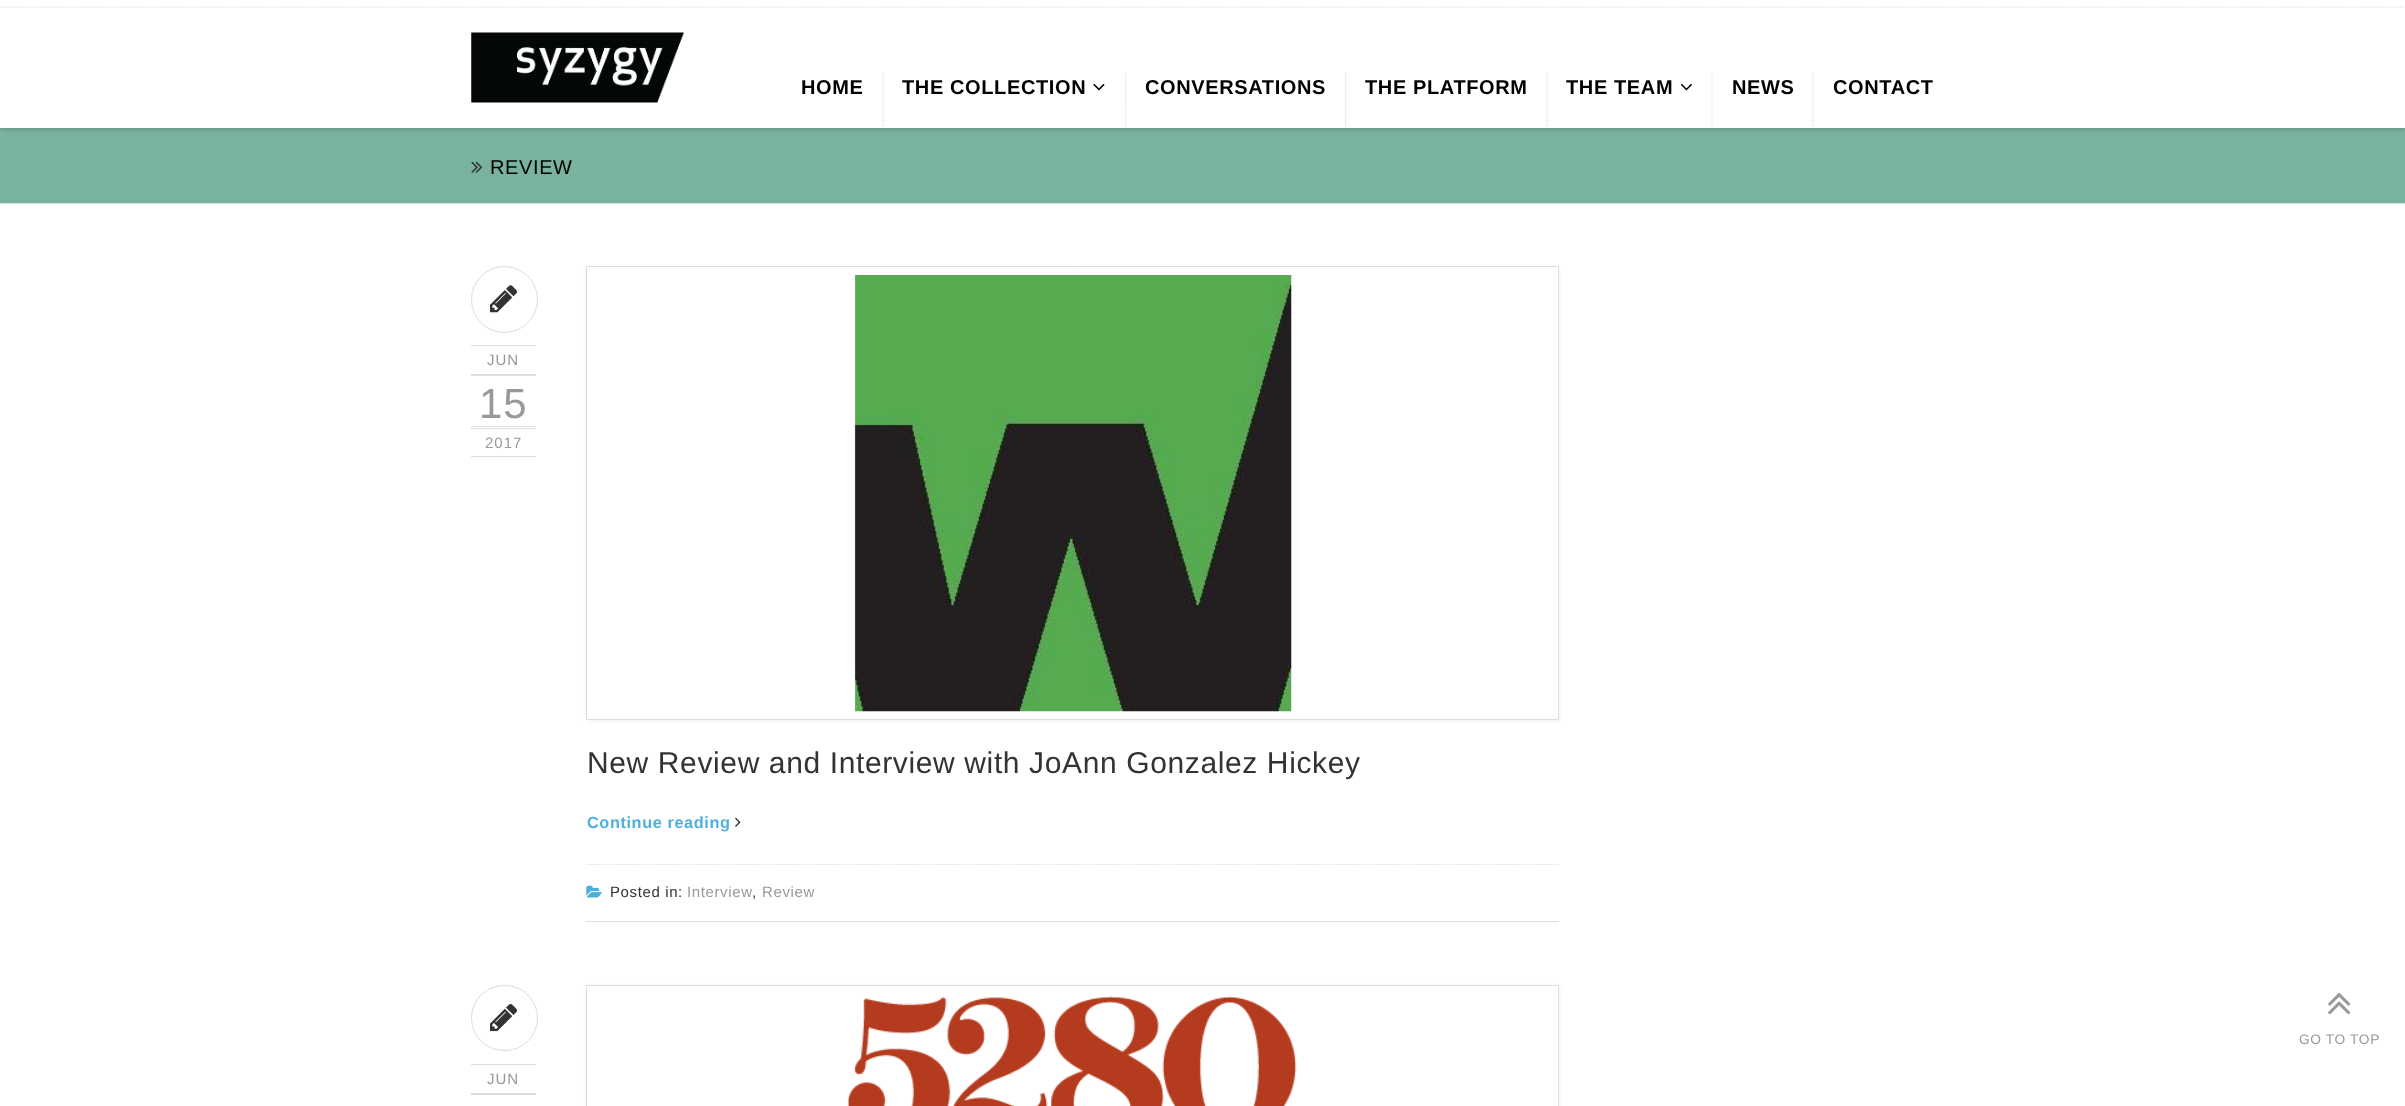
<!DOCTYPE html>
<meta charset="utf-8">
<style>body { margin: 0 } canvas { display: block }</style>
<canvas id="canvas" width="2405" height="1106"></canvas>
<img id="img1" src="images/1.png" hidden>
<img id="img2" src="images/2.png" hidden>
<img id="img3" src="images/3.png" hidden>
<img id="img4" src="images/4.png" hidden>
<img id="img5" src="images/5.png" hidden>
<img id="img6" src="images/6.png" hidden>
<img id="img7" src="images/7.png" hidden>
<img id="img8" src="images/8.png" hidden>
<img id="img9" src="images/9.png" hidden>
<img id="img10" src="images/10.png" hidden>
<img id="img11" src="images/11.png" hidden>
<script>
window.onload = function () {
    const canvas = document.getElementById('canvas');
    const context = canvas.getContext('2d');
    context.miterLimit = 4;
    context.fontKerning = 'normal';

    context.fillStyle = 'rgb(255, 255, 255)';
    context.fillRect(0, 0, 2405, 1106);
    context.fillStyle = 'rgb(121, 178, 159)';
    context.fillRect(0, 128, 2405, 75);
    context.save();
    context.beginPath();
    context.moveTo(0, 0);
    context.lineTo(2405, 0);
    context.lineTo(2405, 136);
    context.lineTo(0, 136);
    context.closePath();
    context.moveTo(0, 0);
    context.lineTo(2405, 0);
    context.lineTo(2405, 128);
    context.lineTo(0, 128);
    context.closePath();
    context.clip('evenodd');
    context.fillStyle = 'rgba(0, 0, 0, 0.2)';
    context.filter = 'blur(2px)';
    context.beginPath();
    context.rect(0, 1, 2405, 128);
    context.fill();
    context.filter = 'none';
    context.restore();
    context.fillStyle = 'rgba(255, 255, 255, 0.95)';
    context.fillRect(0, 127, 2405, 1);
    context.beginPath();
    context.moveTo(0, 7);
    context.lineTo(2405, 7);
    context.strokeStyle = 'rgb(221, 221, 221)';
    context.lineWidth = 1.2;
    context.setLineDash([1.25, 1.25]);
    context.stroke();
    context.drawImage(document.getElementById('img1'), 471, 32, 213, 71);
    context.beginPath();
    context.moveTo(883, 72.5);
    context.lineTo(883, 127.5);
    context.stroke();
    context.drawImage(document.getElementById('img2'), 1093, 83, 12, 8);
    context.beginPath();
    context.moveTo(1125.5, 72.5);
    context.lineTo(1125.5, 127.5);
    context.stroke();
    context.beginPath();
    context.moveTo(1345.5, 72.5);
    context.lineTo(1345.5, 127.5);
    context.stroke();
    context.beginPath();
    context.moveTo(1547, 72.5);
    context.lineTo(1547, 127.5);
    context.stroke();
    context.drawImage(document.getElementById('img3'), 1680, 83, 12, 8);
    context.beginPath();
    context.moveTo(1712, 72.5);
    context.lineTo(1712, 127.5);
    context.stroke();
    context.beginPath();
    context.moveTo(1813, 72.5);
    context.lineTo(1813, 127.5);
    context.stroke();
    context.fillStyle = 'rgb(221, 221, 221)';
    context.fillRect(0, 203, 2405, 1);
    context.drawImage(document.getElementById('img4'), 471, 161, 12, 12);
    context.beginPath();
    context.arc(504.5, 299.5, 33, 0, 2 * Math.PI);
    context.lineWidth = 1;
    context.setLineDash([]);
    context.stroke();
    context.drawImage(document.getElementById('img5'), 490, 285, 27, 28);
    context.fillRect(471, 345, 65, 1);
    context.fillRect(471, 374, 65, 2);
    context.fillRect(471, 426, 65, 1);
    context.fillRect(471, 428, 65, 1);
    context.fillRect(471, 456, 65, 1);
    context.fillStyle = 'rgba(0, 0, 0, 0.06)';
    context.filter = 'blur(2px)';
    context.beginPath();
    context.rect(586, 268, 973, 453);
    context.fill();
    context.filter = 'none';
    context.fillStyle = 'rgb(255, 255, 255)';
    context.beginPath();
    context.rect(586.5, 266.5, 972, 453);
    context.fill();
    context.stroke();
    context.drawImage(document.getElementById('img6'), 854, 275, 438, 437);
    context.drawImage(document.getElementById('img7'), 735, 817, 6, 10);
    context.beginPath();
    context.moveTo(586, 864.5);
    context.lineTo(1559, 864.5);
    context.lineWidth = 1.2;
    context.setLineDash([1.25, 1.25]);
    context.stroke();
    context.fillStyle = 'rgb(221, 221, 221)';
    context.fillRect(586, 921, 973, 1);
    context.drawImage(document.getElementById('img8'), 586, 885, 16, 13);
    context.beginPath();
    context.roundRect(471.5, 985.5, 66, 65, 32.5);
    context.lineWidth = 1;
    context.setLineDash([]);
    context.stroke();
    context.drawImage(document.getElementById('img9'), 490, 1004, 27, 28);
    context.fillRect(471, 1064, 65, 1);
    context.fillRect(471, 1093, 65, 2);
    context.fillStyle = 'rgba(0, 0, 0, 0.06)';
    context.filter = 'blur(2px)';
    context.beginPath();
    context.rect(586, 986, 973, 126);
    context.fill();
    context.filter = 'none';
    context.fillStyle = 'rgb(255, 255, 255)';
    context.beginPath();
    context.rect(586.5, 985.5, 972, 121);
    context.fill();
    context.stroke();
    context.drawImage(document.getElementById('img10'), 848, 996, 449, 110);
    context.drawImage(document.getElementById('img11'), 2328, 992, 23, 23);
    context.letterSpacing = '0.62px';
    context.font = 'bold 20px Liberation Sans';
    context.fillStyle = 'rgb(0, 0, 0)';
    context.fillText('HOME', 801, 94);
    context.fillText('THE COLLECTION', 902, 94);
    context.fillText('CONVERSATIONS', 1145, 94);
    context.fillText('THE PLATFORM', 1365, 94);
    context.fillText('THE TEAM', 1566, 94);
    context.fillText('NEWS', 1732, 94);
    context.fillText('CONTACT', 1833, 94);
    context.font = '20px Liberation Sans';
    context.fillText('REVIEW', 490, 174);
    context.letterSpacing = '1px';
    context.font = '15px Liberation Sans';
    context.fillStyle = 'rgb(153, 153, 153)';
    context.fillText('JUN', 487, 365);
    context.font = '42px Liberation Sans';
    context.fillText('15', 479, 418);
    context.font = '15px Liberation Sans';
    context.fillText('2017', 485, 448);
    context.letterSpacing = '0.62px';
    context.font = '30px Liberation Sans';
    context.fillStyle = 'rgb(51, 51, 51)';
    context.fillText('New Review and Interview with JoAnn Gonzalez Hickey', 587, 773);
    context.font = 'bold 16.25px Liberation Sans';
    context.fillStyle = 'rgb(76, 176, 219)';
    context.fillText('Continue reading', 587, 828);
    context.font = '15px Liberation Sans';
    context.fillStyle = 'rgb(51, 51, 51)';
    context.fillText('Posted in:', 610, 897);
    context.fillStyle = 'rgb(153, 153, 153)';
    context.fillText('Interview', 687, 897);
    context.fillStyle = 'rgb(51, 51, 51)';
    context.fillText(',', 752, 897);
    context.fillStyle = 'rgb(153, 153, 153)';
    context.fillText('Review', 762, 897);
    context.letterSpacing = '1px';
    context.fillText('JUN', 487, 1084);
    context.letterSpacing = '0.62px';
    context.font = '13.75px Liberation Sans';
    context.fillText('GO TO TOP', 2299, 1044);
};
</script>
